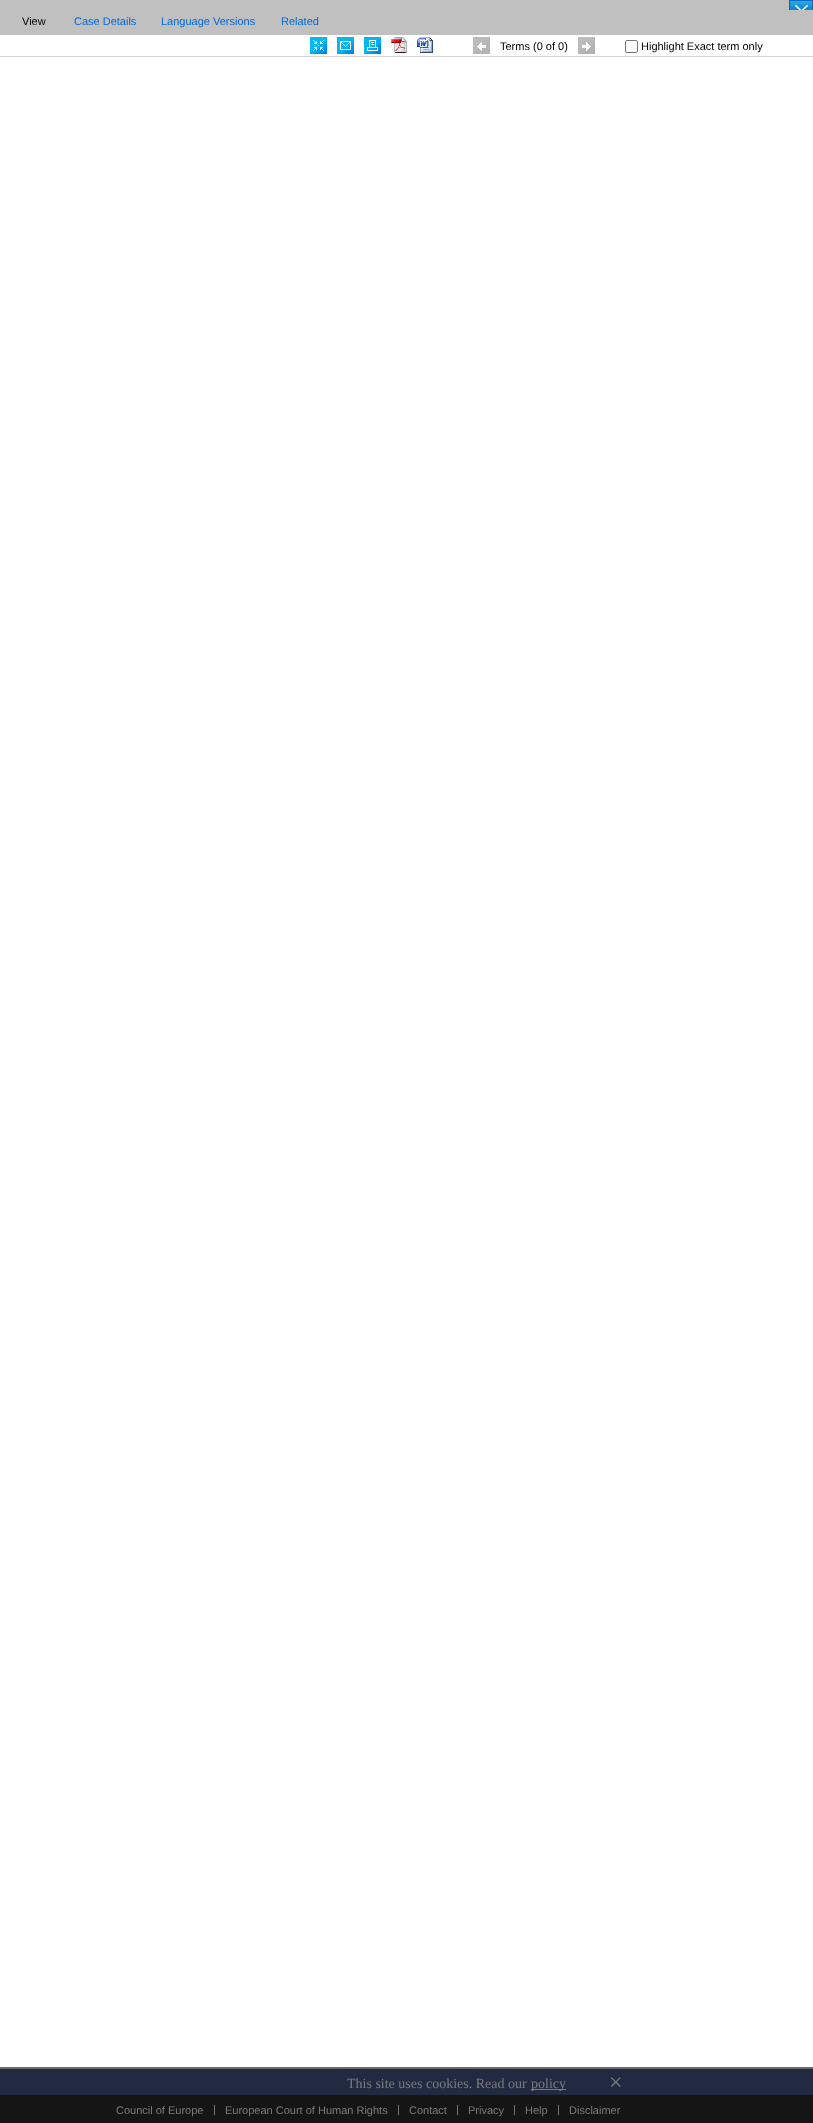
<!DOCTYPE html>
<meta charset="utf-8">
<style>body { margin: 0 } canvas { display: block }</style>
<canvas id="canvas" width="813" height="2123"></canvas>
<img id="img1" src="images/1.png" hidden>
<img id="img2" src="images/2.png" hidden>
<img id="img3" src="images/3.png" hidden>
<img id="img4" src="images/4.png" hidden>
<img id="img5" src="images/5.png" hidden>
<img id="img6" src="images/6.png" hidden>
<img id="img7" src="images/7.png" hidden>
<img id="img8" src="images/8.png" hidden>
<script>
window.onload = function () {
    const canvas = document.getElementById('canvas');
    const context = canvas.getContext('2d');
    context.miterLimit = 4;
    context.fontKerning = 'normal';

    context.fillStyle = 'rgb(106, 106, 106)';
    context.fillRect(0, 0, 813, 2123);
    context.fillStyle = 'rgb(193, 192, 192)';
    context.fillRect(0, 0, 789, 10);
    context.drawImage(document.getElementById('img1'), 789, 0, 24, 10);
    context.fillStyle = 'rgb(255, 255, 255)';
    context.fillRect(0, 35, 813, 2032);
    context.fillStyle = 'rgb(193, 192, 192)';
    context.fillRect(0, 10, 813, 25);
    context.fillStyle = 'rgb(211, 211, 211)';
    context.fillRect(0, 56, 813, 1);
    context.drawImage(document.getElementById('img2'), 310, 37, 17, 17);
    context.drawImage(document.getElementById('img3'), 337, 37, 17, 17);
    context.drawImage(document.getElementById('img4'), 364, 37, 17, 17);
    context.drawImage(document.getElementById('img5'), 391, 37, 16, 16);
    context.drawImage(document.getElementById('img6'), 417, 37, 16, 16);
    context.drawImage(document.getElementById('img7'), 473, 37, 17, 17);
    context.drawImage(document.getElementById('img8'), 578, 37, 17, 17);
    context.beginPath();
    context.roundRect(625.5, 40.5, 12, 12, 1.5);
    context.strokeStyle = 'rgb(118, 118, 118)';
    context.stroke();
    context.fillStyle = 'rgb(34, 42, 65)';
    context.fillRect(0, 2069, 813, 26);
    context.fillStyle = 'rgb(124, 124, 124)';
    context.fillRect(531, 2089, 35, 1);
    context.fillStyle = 'rgb(21, 21, 21)';
    context.fillRect(0, 2095, 813, 28);
    context.font = '11px Liberation Sans';
    context.fillStyle = 'rgb(0, 0, 0)';
    context.fillText('View', 22, 25);
    context.fillStyle = 'rgb(0, 105, 214)';
    context.fillText('Case Details', 74, 25);
    context.fillText('Language Versions', 161, 25);
    context.fillText('Related', 281, 25);
    context.fillStyle = 'rgb(0, 0, 0)';
    context.fillText('Terms (0 of 0)', 500, 50);
    context.fillText('Highlight Exact term only', 641, 50);
    context.font = '14px Liberation Serif';
    context.fillStyle = 'rgb(124, 124, 124)';
    context.fillText('This site uses cookies. Read our', 347, 2088);
    context.fillText('policy', 531, 2088);
    context.font = '24px Liberation Serif';
    context.fillText('×', 609, 2090);
    context.font = '11px Liberation Sans';
    context.fillText('Council of Europe', 116, 2114);
    context.fillText('|', 213, 2113);
    context.fillText('European Court of Human Rights', 225, 2114);
    context.fillText('|', 397, 2113);
    context.fillText('Contact', 409, 2114);
    context.fillText('|', 456, 2113);
    context.fillText('Privacy', 468, 2114);
    context.fillText('|', 513, 2113);
    context.fillText('Help', 525, 2114);
    context.fillText('|', 557, 2113);
    context.fillText('Disclaimer', 569, 2114);
};
</script>
